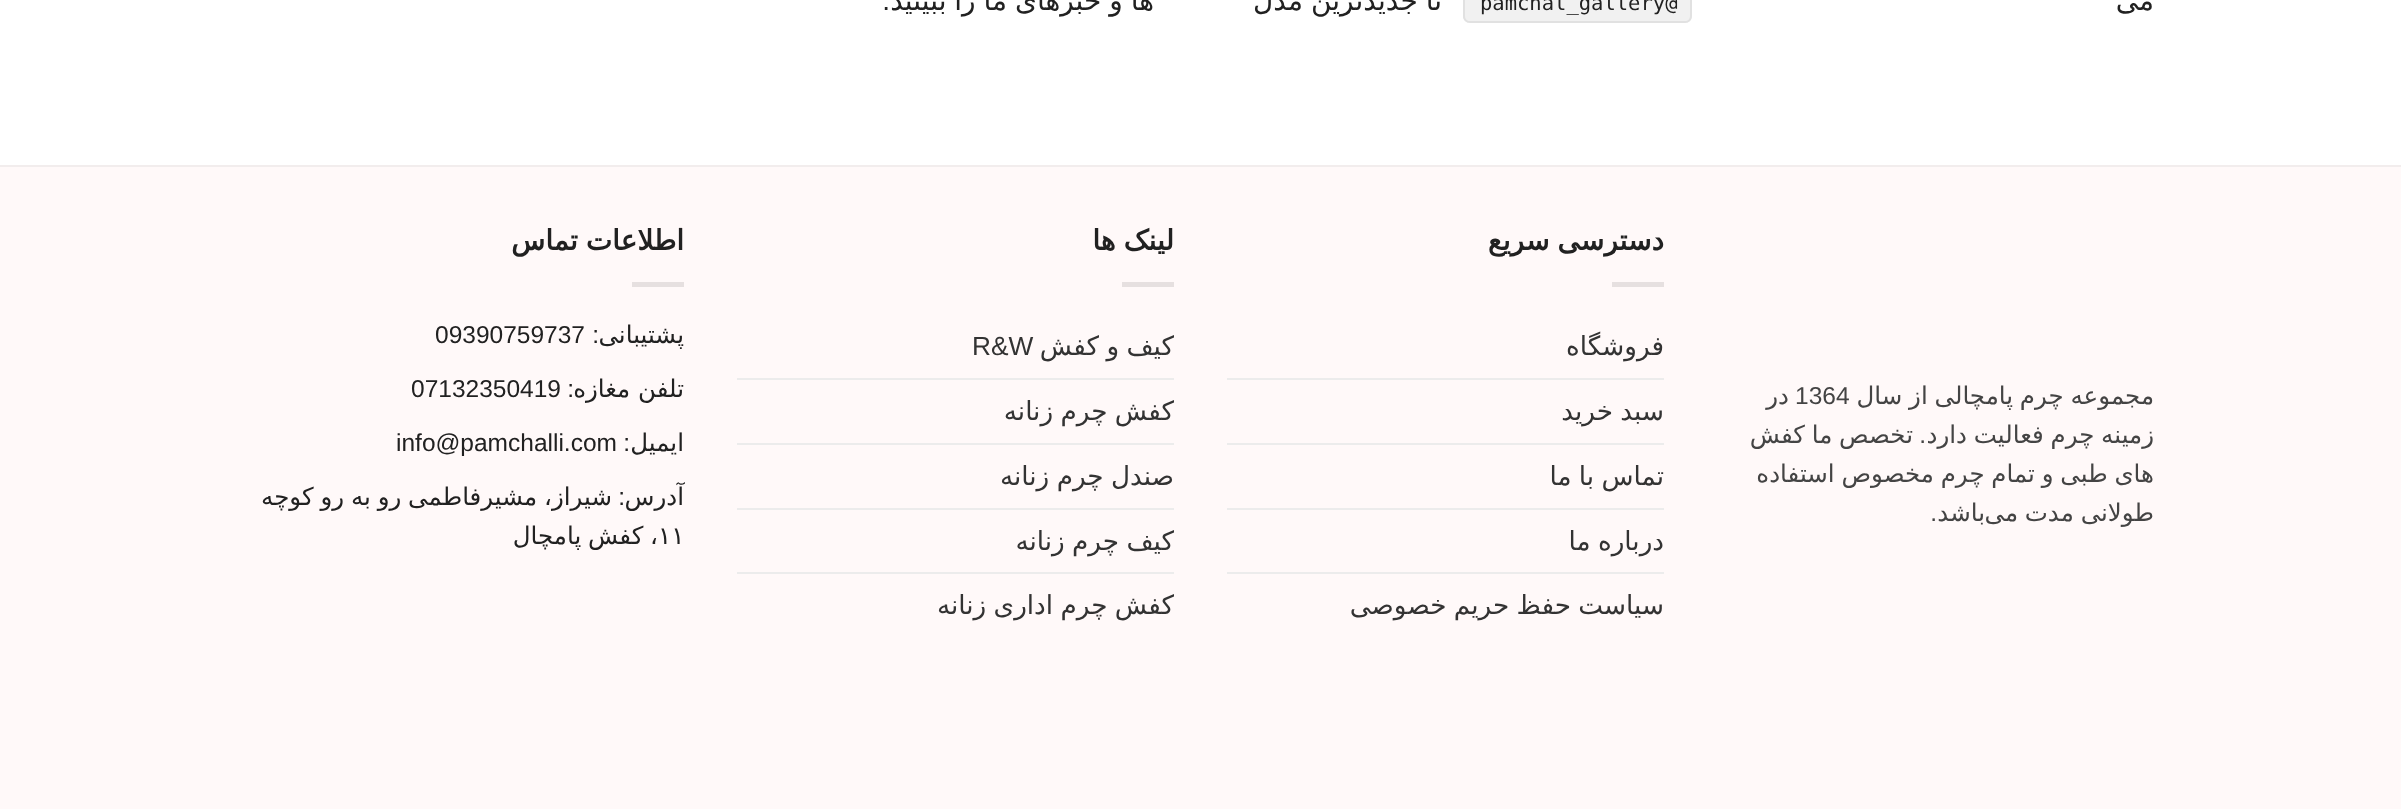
<!DOCTYPE html>
<meta charset="utf-8">
<style>body { margin: 0 } canvas { display: block }</style>
<canvas id="canvas" width="2401" height="809"></canvas>
<script>
window.onload = function () {
    const canvas = document.getElementById('canvas');
    const context = canvas.getContext('2d');
    context.miterLimit = 4;
    context.fontKerning = 'normal';

    context.fillStyle = 'rgb(255, 255, 255)';
    context.fillRect(0, 0, 2401, 809);
    context.fillStyle = 'rgb(241, 241, 241)';
    context.beginPath();
    context.moveTo(1470, -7);
    context.lineTo(1664, -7);
    context.lineTo(1664, 23);
    context.lineTo(1470, 23);
    context.bezierCurveTo(1466, 23, 1463, 20, 1463, 16);
    context.lineTo(1463, 0);
    context.bezierCurveTo(1463, -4, 1466, -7, 1470, -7);
    context.closePath();
    context.fill();
    context.fillStyle = 'rgb(225, 225, 225)';
    context.beginPath();
    context.moveTo(1470, -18);
    context.lineTo(1664, -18);
    context.lineTo(1664, 23);
    context.lineTo(1470, 23);
    context.bezierCurveTo(1466, 23, 1463, 20, 1463, 16);
    context.lineTo(1463, -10);
    context.bezierCurveTo(1463, -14, 1466, -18, 1470, -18);
    context.closePath();
    context.moveTo(1470, -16);
    context.lineTo(1664, -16);
    context.lineTo(1664, 21);
    context.lineTo(1470, 21);
    context.bezierCurveTo(1467, 21, 1465, 19, 1465, 16);
    context.lineTo(1465, -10);
    context.bezierCurveTo(1465, -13, 1467, -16, 1470, -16);
    context.closePath();
    context.fill('evenodd');
    context.fillStyle = 'rgb(241, 241, 241)';
    context.beginPath();
    context.moveTo(1664, -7);
    context.lineTo(1685, -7);
    context.bezierCurveTo(1689, -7, 1692, -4, 1692, 0);
    context.lineTo(1692, 16);
    context.bezierCurveTo(1692, 20, 1689, 23, 1685, 23);
    context.lineTo(1664, 23);
    context.closePath();
    context.fill();
    context.fillStyle = 'rgb(225, 225, 225)';
    context.beginPath();
    context.moveTo(1664, -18);
    context.lineTo(1685, -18);
    context.bezierCurveTo(1689, -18, 1692, -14, 1692, -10);
    context.lineTo(1692, 16);
    context.bezierCurveTo(1692, 20, 1689, 23, 1685, 23);
    context.lineTo(1664, 23);
    context.closePath();
    context.moveTo(1664, -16);
    context.lineTo(1685, -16);
    context.bezierCurveTo(1688, -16, 1690, -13, 1690, -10);
    context.lineTo(1690, 16);
    context.bezierCurveTo(1690, 19, 1688, 21, 1685, 21);
    context.lineTo(1664, 21);
    context.closePath();
    context.fill('evenodd');
    context.fillStyle = 'rgb(255, 249, 249)';
    context.fillRect(0, 167, 2401, 642);
    context.fillStyle = 'rgb(242, 237, 237)';
    context.fillRect(0, 165, 2401, 2);
    context.fillStyle = 'rgb(230, 224, 224)';
    context.fillRect(1612, 282, 52, 5);
    context.fillStyle = 'rgb(236, 236, 236)';
    context.fillRect(1227, 378, 437, 2);
    context.fillRect(1227, 443, 437, 2);
    context.fillRect(1227, 508, 437, 2);
    context.fillRect(1227, 572, 437, 2);
    context.fillStyle = 'rgb(230, 224, 224)';
    context.fillRect(1122, 282, 52, 5);
    context.fillStyle = 'rgb(236, 236, 236)';
    context.fillRect(737, 378, 437, 2);
    context.fillRect(737, 443, 437, 2);
    context.fillRect(737, 508, 437, 2);
    context.fillRect(737, 572, 437, 2);
    context.fillStyle = 'rgb(230, 224, 224)';
    context.fillRect(632, 282, 52, 5);
    context.direction = 'rtl';
    context.font = '28px DejaVu Sans';
    context.fillStyle = 'rgb(33, 33, 33)';
    context.fillText('می', 2154, 10);
    context.direction = 'ltr';
    context.font = '20.5px DejaVu Sans Mono';
    context.fillText('pamchal_gallery@', 1480, 10);
    context.wordSpacing = '-1px';
    context.direction = 'rtl';
    context.font = '28px DejaVu Sans';
    context.fillText('تا جدیدترین مدل', 1442, 10);
    context.fillText('ها و خبرهای ما را ببینید', 1154, 10);
    context.wordSpacing = '0px';
    context.font = '28px Liberation Sans';
    context.fillText('.', 890, 10);
    context.wordSpacing = '-1px';
    context.font = '24.5px DejaVu Sans';
    context.fillStyle = 'rgb(68, 68, 68)';
    context.fillText('مجموعه چرم پامچالی از سال', 2154, 404);
    context.wordSpacing = '0px';
    context.direction = 'ltr';
    context.font = '24.5px Liberation Sans';
    context.fillText('1364', 1795, 404);
    context.direction = 'rtl';
    context.font = '24.5px DejaVu Sans';
    context.fillText('در', 1789, 404);
    context.wordSpacing = '-1px';
    context.fillText('زمینه چرم فعالیت دارد', 2154, 443);
    context.wordSpacing = '0px';
    context.font = '24.5px Liberation Sans';
    context.fillText('.', 1926, 443);
    context.wordSpacing = '-1px';
    context.font = '24.5px DejaVu Sans';
    context.fillText('تخصص ما کفش', 1913, 443);
    context.fillText('های طبی و تمام چرم مخصوص استفاده', 2154, 482);
    context.fillText('طولانی مدت می', 2154, 521);
    context.wordSpacing = '0px';
    context.fillText('باشد', 1985, 521);
    context.font = '24.5px Liberation Sans';
    context.fillText('.', 1937, 521);
    context.wordSpacing = '-1px';
    context.font = 'bold 28px DejaVu Sans';
    context.fillStyle = 'rgb(33, 33, 33)';
    context.fillText('دسترسی سریع', 1664, 250);
    context.wordSpacing = '0px';
    context.font = '26.25px DejaVu Sans';
    context.fillStyle = 'rgb(51, 51, 51)';
    context.fillText('فروشگاه', 1664, 355);
    context.wordSpacing = '-1px';
    context.fillText('سبد خرید', 1664, 420);
    context.fillText('تماس با ما', 1664, 485);
    context.fillText('درباره ما', 1664, 550);
    context.fillText('سیاست حفظ حریم خصوصی', 1664, 614);
    context.font = 'bold 28px DejaVu Sans';
    context.fillStyle = 'rgb(33, 33, 33)';
    context.fillText('لینک ها', 1174, 250);
    context.font = '26.25px DejaVu Sans';
    context.fillStyle = 'rgb(51, 51, 51)';
    context.fillText('کیف و کفش', 1174, 355);
    context.wordSpacing = '0px';
    context.direction = 'ltr';
    context.font = '26.25px Liberation Sans';
    context.fillText('R&W', 972, 355);
    context.wordSpacing = '-1px';
    context.direction = 'rtl';
    context.font = '26.25px DejaVu Sans';
    context.fillText('کفش چرم زنانه', 1174, 420);
    context.fillText('صندل چرم زنانه', 1174, 485);
    context.fillText('کیف چرم زنانه', 1174, 550);
    context.fillText('کفش چرم اداری زنانه', 1174, 614);
    context.font = 'bold 28px DejaVu Sans';
    context.fillStyle = 'rgb(33, 33, 33)';
    context.fillText('اطلاعات تماس', 684, 250);
    context.wordSpacing = '0px';
    context.font = '24.5px DejaVu Sans';
    context.fillText('پشتیبانی', 684, 343);
    context.font = '24.5px Liberation Sans';
    context.fillText(':', 599, 343);
    context.direction = 'ltr';
    context.fillText('09390759737', 435, 343);
    context.direction = 'rtl';
    context.font = '24.5px DejaVu Sans';
    context.fillText('تلفن مغازه', 684, 397);
    context.font = '24.5px Liberation Sans';
    context.fillText(':', 574, 397);
    context.direction = 'ltr';
    context.fillText('07132350419', 411, 397);
    context.direction = 'rtl';
    context.font = '24.5px DejaVu Sans';
    context.fillText('ایمیل', 684, 451);
    context.font = '24.5px Liberation Sans';
    context.fillText(':', 630, 451);
    context.direction = 'ltr';
    context.fillText('info@pamchalli.com', 396, 451);
    context.direction = 'rtl';
    context.font = '24.5px DejaVu Sans';
    context.fillText('آدرس', 684, 505);
    context.font = '24.5px Liberation Sans';
    context.fillText(':', 625, 505);
    context.wordSpacing = '-1px';
    context.font = '24.5px DejaVu Sans';
    context.fillText('شیراز، مشیرفاطمی رو به رو کوچه', 612, 505);
    context.wordSpacing = '0px';
    context.direction = 'ltr';
    context.fillText('۱۱', 658, 544);
    context.wordSpacing = '-1px';
    context.direction = 'rtl';
    context.fillText('، کفش پامچال', 658, 544);
};
</script>
